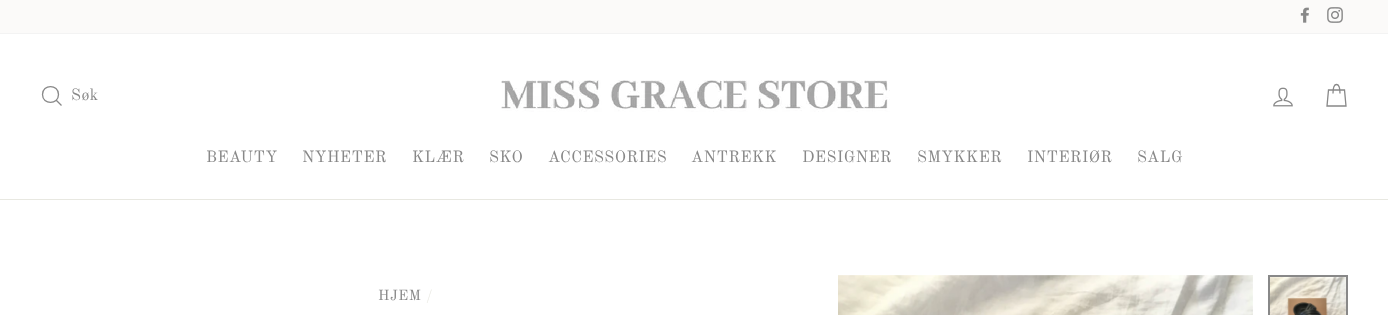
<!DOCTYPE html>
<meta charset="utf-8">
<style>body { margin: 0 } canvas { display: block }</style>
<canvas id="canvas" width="1388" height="315"></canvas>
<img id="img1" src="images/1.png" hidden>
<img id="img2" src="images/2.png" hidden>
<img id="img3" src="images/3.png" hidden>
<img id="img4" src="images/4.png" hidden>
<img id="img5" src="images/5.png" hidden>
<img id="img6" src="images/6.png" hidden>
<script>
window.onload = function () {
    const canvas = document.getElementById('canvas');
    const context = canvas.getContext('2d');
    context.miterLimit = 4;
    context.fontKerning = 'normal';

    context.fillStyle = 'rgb(255, 255, 255)';
    context.fillRect(0, 0, 1388, 315);
    context.fillStyle = 'rgb(251, 250, 249)';
    context.fillRect(0, 0, 1388, 33);
    context.drawImage(document.getElementById('img1'), 1300, 7, 9, 16);
    context.drawImage(document.getElementById('img2'), 1327, 7, 16, 16);
    context.fillStyle = 'rgb(243, 243, 243)';
    context.fillRect(0, 33, 1388, 1);
    context.fillStyle = 'rgb(232, 232, 225)';
    context.fillRect(0, 199, 1388, 1);
    context.beginPath();
    context.moveTo(58.5, 94.5);
    context.bezierCurveTo(58.5, 105, 42.5, 105, 42.5, 94.5);
    context.bezierCurveTo(42.5, 84, 58.5, 84, 58.5, 94.5);
    context.closePath();
    context.moveTo(61.5, 105.5);
    context.lineTo(56.5, 100.5);
    context.strokeStyle = 'rgb(136, 136, 136)';
    context.lineWidth = 1.3;
    context.stroke();
    context.drawImage(document.getElementById('img3'), 501, 80, 389, 32);
    context.drawImage(document.getElementById('img4'), 1273, 87, 20, 20);
    context.beginPath();
    context.moveTo(1333, 93.5);
    context.bezierCurveTo(1333, 81.5, 1340, 81.5, 1340, 93.5);
    context.moveTo(1328.5, 90);
    context.lineTo(1344.5, 90);
    context.lineTo(1346, 106);
    context.lineTo(1327, 106);
    context.closePath();
    context.stroke();
    context.drawImage(document.getElementById('img5'), 838, 275, 415, 40);
    context.lineWidth = 2;
    context.strokeRect(1269, 276, 78, 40);
    context.drawImage(document.getElementById('img6'), 1270, 277, 76, 38);
    context.letterSpacing = '0.5px';
    context.font = '16px Old Standard TT';
    context.fillStyle = 'rgb(136, 136, 136)';
    context.fillText('Søk', 71, 100);
    context.fillText('BEAUTY', 206, 162);
    context.fillText('NYHETER', 302, 162);
    context.fillText('KLÆR', 412, 162);
    context.fillText('SKO', 489, 162);
    context.fillText('ACCESSORIES', 548, 162);
    context.fillText('ANTREKK', 691, 162);
    context.fillText('DESIGNER', 802, 162);
    context.fillText('SMYKKER', 917, 162);
    context.fillText('INTERIØR', 1027, 162);
    context.fillText('SALG', 1137, 162);
    context.font = '14.5px Old Standard TT';
    context.fillText('HJEM', 378, 300);
    context.fillStyle = 'rgb(232, 232, 225)';
    context.fillText('/', 426, 300);
};
</script>
